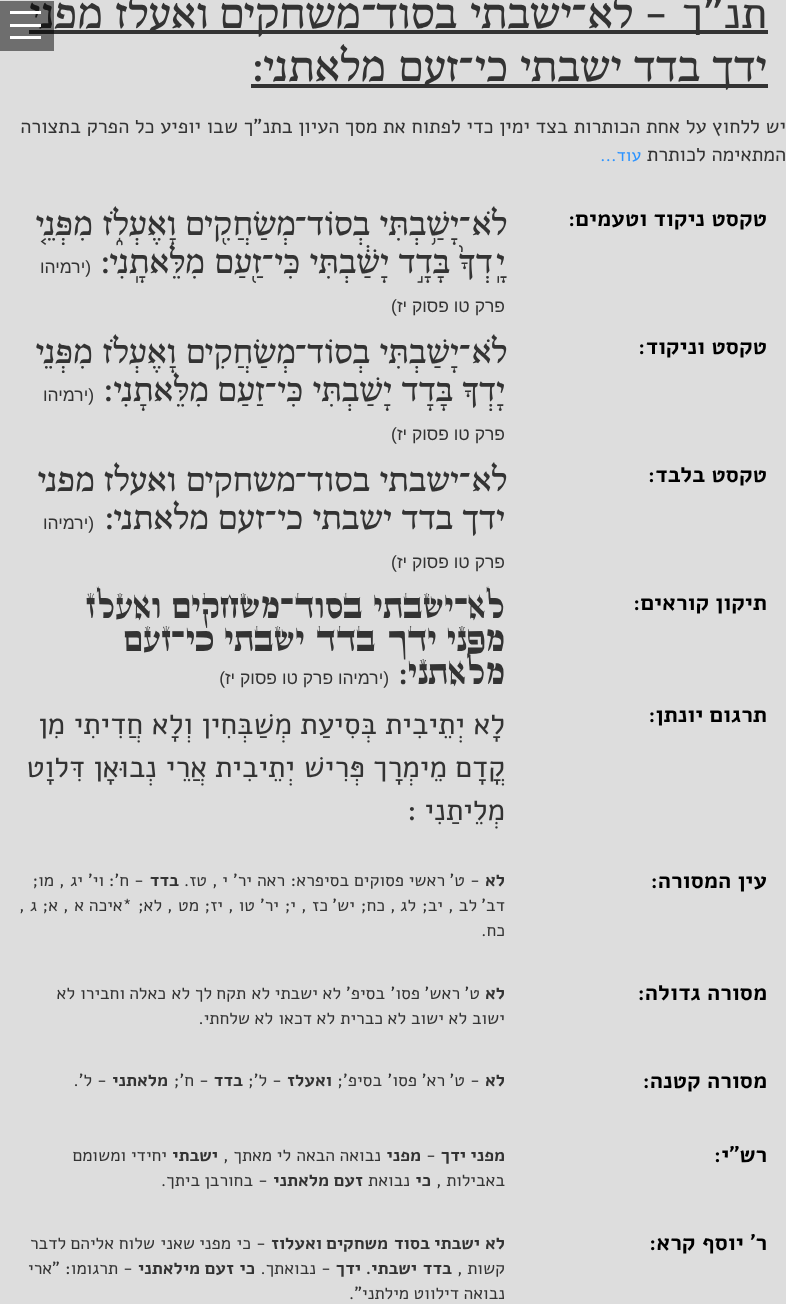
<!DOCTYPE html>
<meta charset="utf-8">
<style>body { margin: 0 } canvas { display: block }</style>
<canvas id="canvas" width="786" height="1304"></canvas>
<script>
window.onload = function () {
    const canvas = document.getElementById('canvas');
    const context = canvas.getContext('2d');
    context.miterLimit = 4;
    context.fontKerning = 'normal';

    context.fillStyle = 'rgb(221, 221, 221)';
    context.fillRect(0, 0, 786, 1304);
    context.fillStyle = 'rgb(51, 51, 51)';
    context.fillRect(29, 30, 739, 4);
    context.fillRect(251, 84, 517, 4);
    context.direction = 'rtl';
    context.font = '45px Alef';
    context.fillText('תנ"ך -', 767, 28);
    context.font = '45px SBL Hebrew';
    context.fillText('לא', 633, 28);
    context.fillText('־', 587, 28);
    context.fillText('ישבתי', 572, 28);
    context.fillText('בסוד', 457, 28);
    context.fillText('־', 377, 28);
    context.fillText('משחקים', 361, 28);
    context.fillText('ואעלז', 208, 28);
    context.fillText('מפני', 103, 28);
    context.fillText('ידך', 767, 81);
    context.fillText('בדד', 700, 81);
    context.fillText('ישבתי', 622, 81);
    context.fillText('כי', 508, 81);
    context.fillText('־', 474, 81);
    context.fillText('זעם', 459, 81);
    context.fillText('מלאתני', 386, 81);
    context.direction = 'ltr';
    context.fillText(':', 251, 81);
    context.direction = 'rtl';
    context.font = '20px Alef';
    context.fillText('יש ללחוץ על אחת הכותרות בצד ימין כדי לפתוח את מסך העיון בתנ"ך שבו יופיע כל הפרק בתצורה', 786, 133);
    context.fillText('המתאימה לכותרת', 786, 161);
    context.font = '17.5px Alef';
    context.fillStyle = 'rgb(44, 147, 255)';
    context.fillText('עוד...', 641, 161);
    context.font = 'bold 22.5px Alef';
    context.fillStyle = 'rgb(0, 0, 0)';
    context.fillText('טקסט ניקוד וטעמים:', 767, 226);
    context.font = '35px SBL Hebrew';
    context.fillStyle = 'rgb(51, 51, 51)';
    context.fillText('לֹא', 507, 235);
    context.fillText('־', 471, 235);
    context.fillText('יָשַׁ֥בְתִּי', 459, 235);
    context.fillText('בְסוֹד', 370, 235);
    context.fillText('־', 307, 235);
    context.fillText('מְשַׂחֲקִ֖ים', 296, 235);
    context.fillText('וָאֶעְלֹ֑ז', 176, 235);
    context.fillText('מִפְּנֵ֤י', 93, 235);
    context.fillText('יָֽדְךָ֙', 505, 273);
    context.fillText('בָּדָ֣ד', 450, 273);
    context.fillText('יָשַׁ֔בְתִּי', 389, 273);
    context.fillText('כִּי', 300, 273);
    context.fillText('־', 274, 273);
    context.fillText('זַ֖עַם', 262, 273);
    context.fillText('מִלֵּאתָֽנִי', 205, 273);
    context.direction = 'ltr';
    context.fillText(':', 100, 273);
    context.direction = 'rtl';
    context.font = '17.5px Liberation Sans';
    context.fillText('(ירמיהו', 91, 273);
    context.fillText('פרק טו פסוק יז)', 505, 312);
    context.font = 'bold 22.5px Alef';
    context.fillStyle = 'rgb(0, 0, 0)';
    context.fillText('טקסט וניקוד:', 767, 354);
    context.font = '35px SBL Hebrew';
    context.fillStyle = 'rgb(51, 51, 51)';
    context.fillText('לֹא', 507, 363);
    context.fillText('־', 471, 363);
    context.fillText('יָשַׁבְתִּי', 459, 363);
    context.fillText('בְסוֹד', 370, 363);
    context.fillText('־', 307, 363);
    context.fillText('מְשַׂחֲקִים', 296, 363);
    context.fillText('וָאֶעְלֹז', 176, 363);
    context.fillText('מִפְּנֵי', 93, 363);
    context.fillText('יָדְךָ', 505, 401);
    context.fillText('בָּדָד', 453, 401);
    context.fillText('יָשַׁבְתִּי', 392, 401);
    context.fillText('כִּי', 303, 401);
    context.fillText('־', 277, 401);
    context.fillText('זַעַם', 265, 401);
    context.fillText('מִלֵּאתָנִי', 209, 401);
    context.direction = 'ltr';
    context.fillText(':', 103, 401);
    context.direction = 'rtl';
    context.font = '17.5px Liberation Sans';
    context.fillText('(ירמיהו', 94, 401);
    context.fillText('פרק טו פסוק יז)', 505, 440);
    context.font = 'bold 22.5px Alef';
    context.fillStyle = 'rgb(0, 0, 0)';
    context.fillText('טקסט בלבד:', 767, 482);
    context.font = '35px SBL Hebrew';
    context.fillStyle = 'rgb(51, 51, 51)';
    context.fillText('לא', 507, 491);
    context.fillText('־', 471, 491);
    context.fillText('ישבתי', 459, 491);
    context.fillText('בסוד', 370, 491);
    context.fillText('־', 307, 491);
    context.fillText('משחקים', 296, 491);
    context.fillText('ואעלז', 176, 491);
    context.fillText('מפני', 95, 491);
    context.fillText('ידך', 505, 529);
    context.fillText('בדד', 453, 529);
    context.fillText('ישבתי', 392, 529);
    context.fillText('כי', 303, 529);
    context.fillText('־', 277, 529);
    context.fillText('זעם', 265, 529);
    context.fillText('מלאתני', 209, 529);
    context.direction = 'ltr';
    context.fillText(':', 104, 529);
    context.direction = 'rtl';
    context.font = '17.5px Liberation Sans';
    context.fillText('(ירמיהו', 94, 529);
    context.fillText('פרק טו פסוק יז)', 505, 568);
    context.font = 'bold 22.5px Alef';
    context.fillStyle = 'rgb(0, 0, 0)';
    context.fillText('תיקון קוראים:', 767, 610);
    context.font = '30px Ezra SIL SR';
    context.fillStyle = 'rgb(51, 51, 51)';
    context.fillText('לא', 505, 618);
    context.fillText('־', 468, 618);
    context.fillText('ישבתי', 454, 618);
    context.fillText('בסוד', 363, 618);
    context.fillText('־', 294, 618);
    context.fillText('משחקים', 280, 618);
    context.fillText('ואעלז', 161, 618);
    context.fillText('מפני', 505, 651);
    context.fillText('ידך', 437, 651);
    context.fillText('בדד', 376, 651);
    context.fillText('ישבתי', 305, 651);
    context.fillText('כי', 214, 651);
    context.fillText('־', 185, 651);
    context.fillText('זעם', 171, 651);
    context.fillText('מלאתני', 505, 684);
    context.direction = 'ltr';
    context.fillText(':', 399, 684);
    context.direction = 'rtl';
    context.font = '17.5px Liberation Sans';
    context.fillText('(ירמיהו פרק טו פסוק יז)', 389, 684);
    context.font = 'bold 22.5px Alef';
    context.fillStyle = 'rgb(0, 0, 0)';
    context.fillText('תרגום יונתן:', 767, 722);
    context.font = '30px Alef';
    context.fillStyle = 'rgb(51, 51, 51)';
    context.fillText('לָא', 505, 734);
    context.fillText('יְתֵיבִית', 465, 734);
    context.fillText('בְּסִיעַת', 377, 734);
    context.fillText('מְשַׁבְּחִין', 292, 734);
    context.fillText('וְלָא', 193, 734);
    context.fillText('חֲדִיתִי', 143, 734);
    context.fillText('מִן', 65, 734);
    context.fillText('קֳדָם', 505, 777);
    context.fillText('מֵימְרָך', 447, 777);
    context.fillText('פְּרִישׁ', 365, 777);
    context.fillText('יְתֵיבִית', 295, 777);
    context.fillText('אֲרֵי', 207, 777);
    context.fillText('נְבוּאָן', 157, 777);
    context.fillText('דִּלוָט', 85, 777);
    context.fillText('מְלֵיתַנִי', 505, 820);
    context.direction = 'ltr';
    context.fillText(':', 407, 820);
    context.direction = 'rtl';
    context.font = 'bold 22.5px Alef';
    context.fillStyle = 'rgb(0, 0, 0)';
    context.fillText('עין המסורה:', 767, 888);
    context.font = 'bold 17.5px Alef';
    context.fillStyle = 'rgb(51, 51, 51)';
    context.fillText('לא', 505, 886);
    context.direction = 'ltr';
    context.font = '17.5px Alef';
    context.fillText('-', 470, 886);
    context.direction = 'rtl';
    context.fillText('ט\'', 465, 886);
    context.fillText('ראשי', 445, 886);
    context.fillText('פסוקים', 404, 886);
    context.fillText('בסיפרא:', 349, 886);
    context.fillText('ראה', 285, 886);
    context.fillText('יר\'', 252, 886);
    context.fillText('י', 228, 886);
    context.fillText('טז.', 207, 886);
    context.font = 'bold 17.5px Alef';
    context.fillText('בדד', 179, 886);
    context.direction = 'ltr';
    context.font = '17.5px Alef';
    context.fillText('-', 134, 886);
    context.direction = 'rtl';
    context.fillText('ח\':', 129, 886);
    context.fillText('וי\'', 104, 886);
    context.fillText('יג', 83, 886);
    context.fillText('מו;', 54, 886);
    context.direction = 'ltr';
    context.fillText(',', 212, 886);
    context.fillText(',', 59, 886);
    context.direction = 'rtl';
    context.fillText('דב\'', 505, 911);
    context.fillText('לב', 477, 911);
    context.direction = 'ltr';
    context.fillText(',', 448, 911);
    context.direction = 'rtl';
    context.fillText('יב;', 443, 911);
    context.fillText('לג', 416, 911);
    context.direction = 'ltr';
    context.fillText(',', 390, 911);
    context.direction = 'rtl';
    context.fillText('כח;', 385, 911);
    context.fillText('יש\'', 355, 911);
    context.fillText('כז', 328, 911);
    context.direction = 'ltr';
    context.fillText(',', 301, 911);
    context.direction = 'rtl';
    context.fillText('י;', 296, 911);
    context.fillText('יר\'', 279, 911);
    context.fillText('טו', 255, 911);
    context.direction = 'ltr';
    context.fillText(',', 228, 911);
    context.direction = 'rtl';
    context.fillText('יז;', 223, 911);
    context.fillText('מט', 199, 911);
    context.direction = 'ltr';
    context.fillText(',', 167, 911);
    context.direction = 'rtl';
    context.fillText('לא;', 162, 911);
    context.fillText('*איכה', 132, 911);
    context.fillText('א', 84, 911);
    context.direction = 'ltr';
    context.fillText(',', 63, 911);
    context.direction = 'rtl';
    context.fillText('א;', 58, 911);
    context.fillText('ג', 37, 911);
    context.direction = 'ltr';
    context.fillText(',', 19, 911);
    context.direction = 'rtl';
    context.fillText('כח.', 505, 936);
    context.font = 'bold 22.5px Alef';
    context.fillStyle = 'rgb(0, 0, 0)';
    context.fillText('מסורה גדולה:', 767, 1000);
    context.font = 'bold 17.5px Alef';
    context.fillStyle = 'rgb(51, 51, 51)';
    context.fillText('לא', 505, 999);
    context.font = '17.5px Alef';
    context.fillText('ט\'', 480, 999);
    context.fillText('ראש\'', 460, 999);
    context.fillText('פסו\'', 420, 999);
    context.fillText('בסיפ\'', 385, 999);
    context.fillText('לא', 341, 999);
    context.fillText('ישבתי', 318, 999);
    context.fillText('לא', 270, 999);
    context.fillText('תקח', 246, 999);
    context.fillText('לך', 212, 999);
    context.fillText('לא', 190, 999);
    context.fillText('כאלה', 166, 999);
    context.fillText('וחבירו', 125, 999);
    context.fillText('לא', 75, 999);
    context.fillText('ישוב', 505, 1024);
    context.fillText('לא', 467, 1024);
    context.fillText('ישוב', 444, 1024);
    context.fillText('לא', 406, 1024);
    context.fillText('כברית', 383, 1024);
    context.fillText('לא', 335, 1024);
    context.fillText('דכאו', 312, 1024);
    context.fillText('לא', 273, 1024);
    context.fillText('שלחתי.', 250, 1024);
    context.font = 'bold 22.5px Alef';
    context.fillStyle = 'rgb(0, 0, 0)';
    context.fillText('מסורה קטנה:', 767, 1088);
    context.font = 'bold 17.5px Alef';
    context.fillStyle = 'rgb(51, 51, 51)';
    context.fillText('לא', 505, 1086);
    context.direction = 'ltr';
    context.font = '17.5px Alef';
    context.fillText('-', 470, 1086);
    context.direction = 'rtl';
    context.fillText('ט\'', 465, 1086);
    context.fillText('רא\'', 445, 1086);
    context.fillText('פסו\'', 417, 1086);
    context.fillText('בסיפ\';', 382, 1086);
    context.font = 'bold 17.5px Alef';
    context.fillText('ואעלז', 332, 1086);
    context.direction = 'ltr';
    context.font = '17.5px Alef';
    context.fillText('-', 272, 1086);
    context.direction = 'rtl';
    context.fillText('ל\';', 267, 1086);
    context.font = 'bold 17.5px Alef';
    context.fillText('בדד', 243, 1086);
    context.direction = 'ltr';
    context.font = '17.5px Alef';
    context.fillText('-', 199, 1086);
    context.direction = 'rtl';
    context.fillText('ח\';', 194, 1086);
    context.font = 'bold 17.5px Alef';
    context.fillText('מלאתני', 168, 1086);
    context.direction = 'ltr';
    context.font = '17.5px Alef';
    context.fillText('-', 97, 1086);
    context.direction = 'rtl';
    context.fillText('ל\'.', 92, 1086);
    context.font = 'bold 22.5px Alef';
    context.fillStyle = 'rgb(0, 0, 0)';
    context.fillText('רש"י:', 767, 1162);
    context.font = 'bold 17.5px Alef';
    context.fillStyle = 'rgb(51, 51, 51)';
    context.fillText('מפני', 505, 1161);
    context.fillText('ידך', 466, 1161);
    context.direction = 'ltr';
    context.font = '17.5px Alef';
    context.fillText('-', 426, 1161);
    context.direction = 'rtl';
    context.font = 'bold 17.5px Alef';
    context.fillText('מפני', 421, 1161);
    context.font = '17.5px Alef';
    context.fillText('נבואה', 381, 1161);
    context.fillText('הבאה', 335, 1161);
    context.fillText('לי', 291, 1161);
    context.fillText('מאתך', 272, 1161);
    context.font = 'bold 17.5px Alef';
    context.fillText('ישבתי', 218, 1161);
    context.font = '17.5px Alef';
    context.fillText('יחידי', 167, 1161);
    context.fillText('ומשומם', 126, 1161);
    context.direction = 'ltr';
    context.fillText(',', 223, 1161);
    context.direction = 'rtl';
    context.fillText('באבילות', 505, 1186);
    context.font = 'bold 17.5px Alef';
    context.fillText('כי', 431, 1186);
    context.font = '17.5px Alef';
    context.fillText('נבואת', 410, 1186);
    context.font = 'bold 17.5px Alef';
    context.fillText('זעם', 363, 1186);
    context.fillText('מלאתני', 329, 1186);
    context.direction = 'ltr';
    context.font = '17.5px Alef';
    context.fillText('-', 258, 1186);
    context.direction = 'rtl';
    context.fillText('בחורבן', 253, 1186);
    context.fillText('ביתך.', 200, 1186);
    context.direction = 'ltr';
    context.fillText(',', 436, 1186);
    context.direction = 'rtl';
    context.font = 'bold 22.5px Alef';
    context.fillStyle = 'rgb(0, 0, 0)';
    context.fillText('ר\' יוסף קרא:', 767, 1250);
    context.font = 'bold 17.5px Alef';
    context.fillStyle = 'rgb(51, 51, 51)';
    context.fillText('לא', 505, 1249);
    context.fillText('ישבתי', 480, 1249);
    context.fillText('בסוד', 430, 1249);
    context.fillText('משחקים', 388, 1249);
    context.fillText('ואעלוז', 322, 1249);
    context.direction = 'ltr';
    context.font = '17.5px Alef';
    context.fillText('-', 256, 1249);
    context.direction = 'rtl';
    context.fillText('כי', 251, 1249);
    context.fillText('מפני', 231, 1249);
    context.fillText('שאני', 195, 1249);
    context.fillText('שלוח', 155, 1249);
    context.fillText('אליהם', 114, 1249);
    context.fillText('לדבר', 66, 1249);
    context.fillText('קשות', 505, 1274);
    context.font = 'bold 17.5px Alef';
    context.fillText('בדד', 452, 1274);
    context.fillText('ישבתי.', 417, 1274);
    context.fillText('ידך', 361, 1274);
    context.direction = 'ltr';
    context.font = '17.5px Alef';
    context.fillText('-', 321, 1274);
    context.direction = 'rtl';
    context.fillText('נבואתך.', 316, 1274);
    context.font = 'bold 17.5px Alef';
    context.fillText('כי', 255, 1274);
    context.fillText('זעם', 234, 1274);
    context.fillText('מילאתני', 200, 1274);
    context.direction = 'ltr';
    context.font = '17.5px Alef';
    context.fillText('-', 123, 1274);
    context.direction = 'rtl';
    context.fillText('תרגומו:', 118, 1274);
    context.fillText('"ארי', 60, 1274);
    context.direction = 'ltr';
    context.fillText(',', 457, 1274);
    context.direction = 'rtl';
    context.fillText('נבואה', 505, 1299);
    context.fillText('דילווט', 459, 1299);
    context.fillText('מילתני".', 409, 1299);
    context.fillStyle = 'rgba(0, 0, 0, 0.5)';
    context.fillRect(0, 1, 54, 50);
    context.fillStyle = 'rgb(255, 255, 255)';
    context.fillRect(10, 24, 31, 3);
    context.fillRect(10, 11, 31, 3);
    context.fillRect(10, 36, 31, 3);
};
</script>
